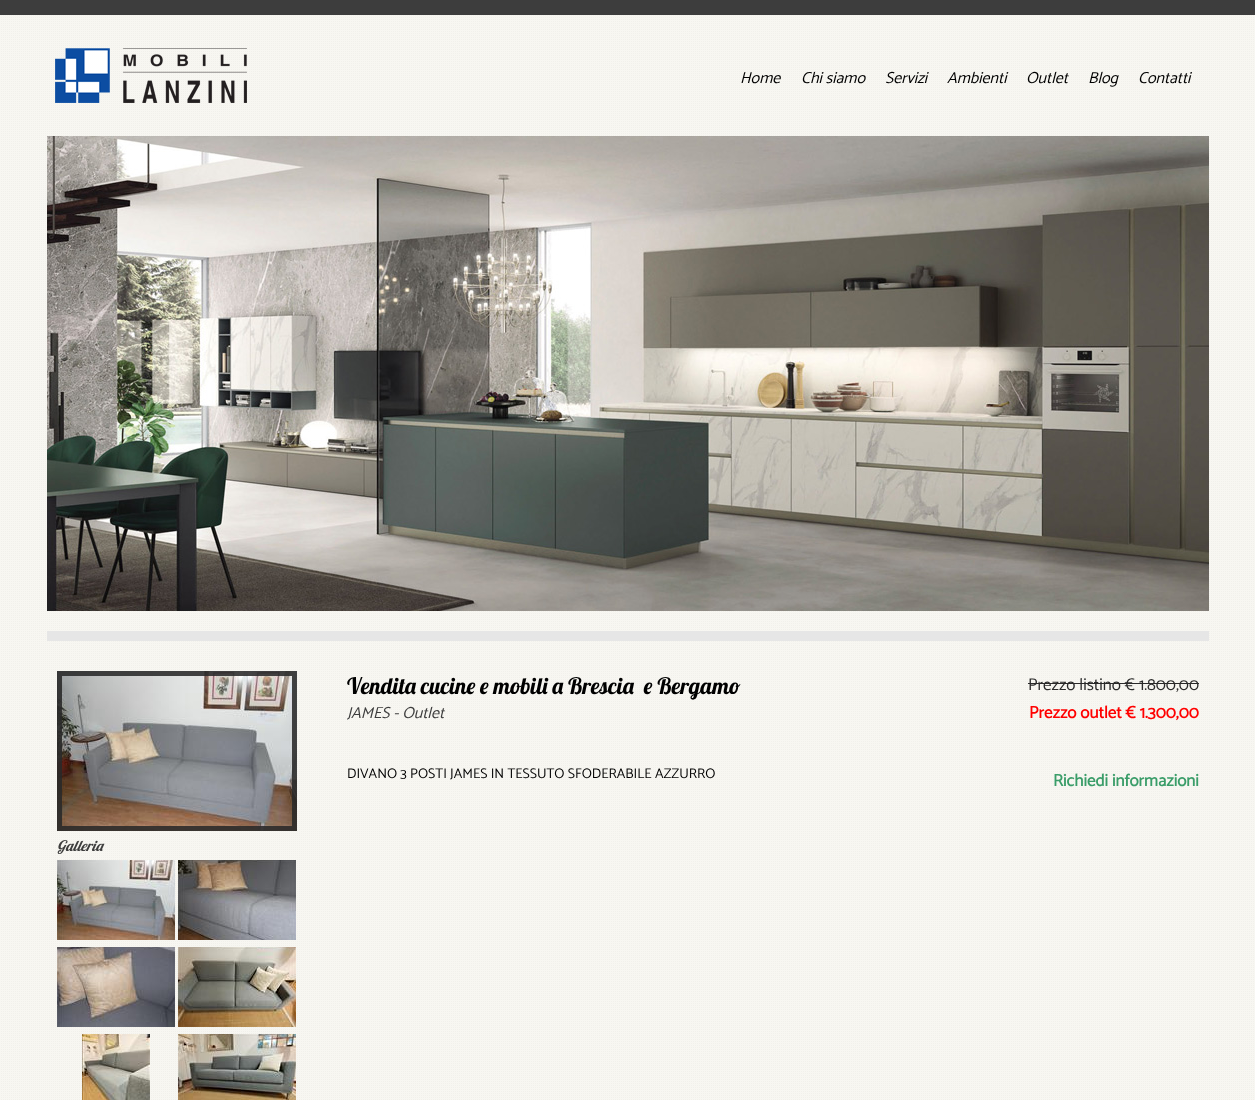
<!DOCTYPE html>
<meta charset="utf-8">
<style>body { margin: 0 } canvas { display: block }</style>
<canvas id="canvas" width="1255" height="1100"></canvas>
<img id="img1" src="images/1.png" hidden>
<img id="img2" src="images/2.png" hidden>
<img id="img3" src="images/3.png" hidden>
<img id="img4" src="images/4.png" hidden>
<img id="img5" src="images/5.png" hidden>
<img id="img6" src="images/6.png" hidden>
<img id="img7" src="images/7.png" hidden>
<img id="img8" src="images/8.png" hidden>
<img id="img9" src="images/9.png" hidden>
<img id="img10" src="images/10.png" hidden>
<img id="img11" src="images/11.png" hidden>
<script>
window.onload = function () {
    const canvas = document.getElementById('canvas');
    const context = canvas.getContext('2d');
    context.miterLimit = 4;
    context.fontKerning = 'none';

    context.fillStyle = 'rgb(255, 255, 255)';
    context.fillRect(0, 0, 1255, 1100);
    context.drawImage(document.getElementById('img1'), 0, 15, 1255, 1085);
    context.fillStyle = 'rgb(61, 61, 61)';
    context.fillRect(0, 0, 1255, 15);
    context.drawImage(document.getElementById('img2'), 55, 48, 192, 55);
    context.drawImage(document.getElementById('img3'), 47, 136, 1162, 475);
    context.fillStyle = 'rgb(230, 230, 230)';
    context.fillRect(47, 631, 1162, 10);
    context.fillStyle = 'rgb(41, 41, 41)';
    context.fillRect(1028, 683, 171, 1);
    context.drawImage(document.getElementById('img4'), 57, 671, 240, 160);
    context.drawImage(document.getElementById('img5'), 57, 671, 240, 160);
    context.drawImage(document.getElementById('img6'), 57, 860, 118, 80);
    context.drawImage(document.getElementById('img7'), 178, 860, 118, 80);
    context.drawImage(document.getElementById('img8'), 57, 947, 118, 80);
    context.drawImage(document.getElementById('img9'), 178, 947, 118, 80);
    context.drawImage(document.getElementById('img10'), 82, 1034, 68, 66);
    context.drawImage(document.getElementById('img11'), 178, 1034, 118, 66);
    context.font = 'italic 100 16px Catamaran';
    context.fillStyle = 'rgb(0, 0, 0)';
    context.fillText('Home', 740, 83);
    context.fillText('Chi siamo', 801, 83);
    context.fillText('Servizi', 885, 83);
    context.fillText('Ambienti', 947, 83);
    context.fillText('Outlet', 1026, 83);
    context.fillText('Blog', 1088, 83);
    context.fillText('Contatti', 1138, 83);
    context.font = '22.7px Lobster';
    context.fillText('Vendita cucine e mobili a Brescia', 347, 694);
    context.fillText('e Bergamo', 644, 694);
    context.font = 'italic 100 16px Catamaran';
    context.fillStyle = 'rgb(61, 61, 61)';
    context.fillText('JAMES - Outlet', 347, 718);
    context.font = '100 14px Catamaran';
    context.fillStyle = 'rgb(0, 0, 0)';
    context.fillText('DIVANO 3 POSTI JAMES IN TESSUTO SFODERABILE AZZURRO', 347, 778);
    context.font = '100 17px Catamaran';
    context.fillStyle = 'rgb(41, 41, 41)';
    context.fillText('Prezzo listino € 1.800,00', 1028, 690);
    context.font = 'bold 17px Catamaran';
    context.fillStyle = 'rgb(255, 0, 0)';
    context.fillText('Prezzo outlet € 1.300,00', 1029, 718);
    context.fillStyle = 'rgb(58, 157, 105)';
    context.fillText('Richiedi informazioni', 1053, 786);
    context.font = 'italic 14.5px Lobster';
    context.fillStyle = 'rgb(61, 61, 61)';
    context.fillText('Galleria', 57, 851);
};
</script>
